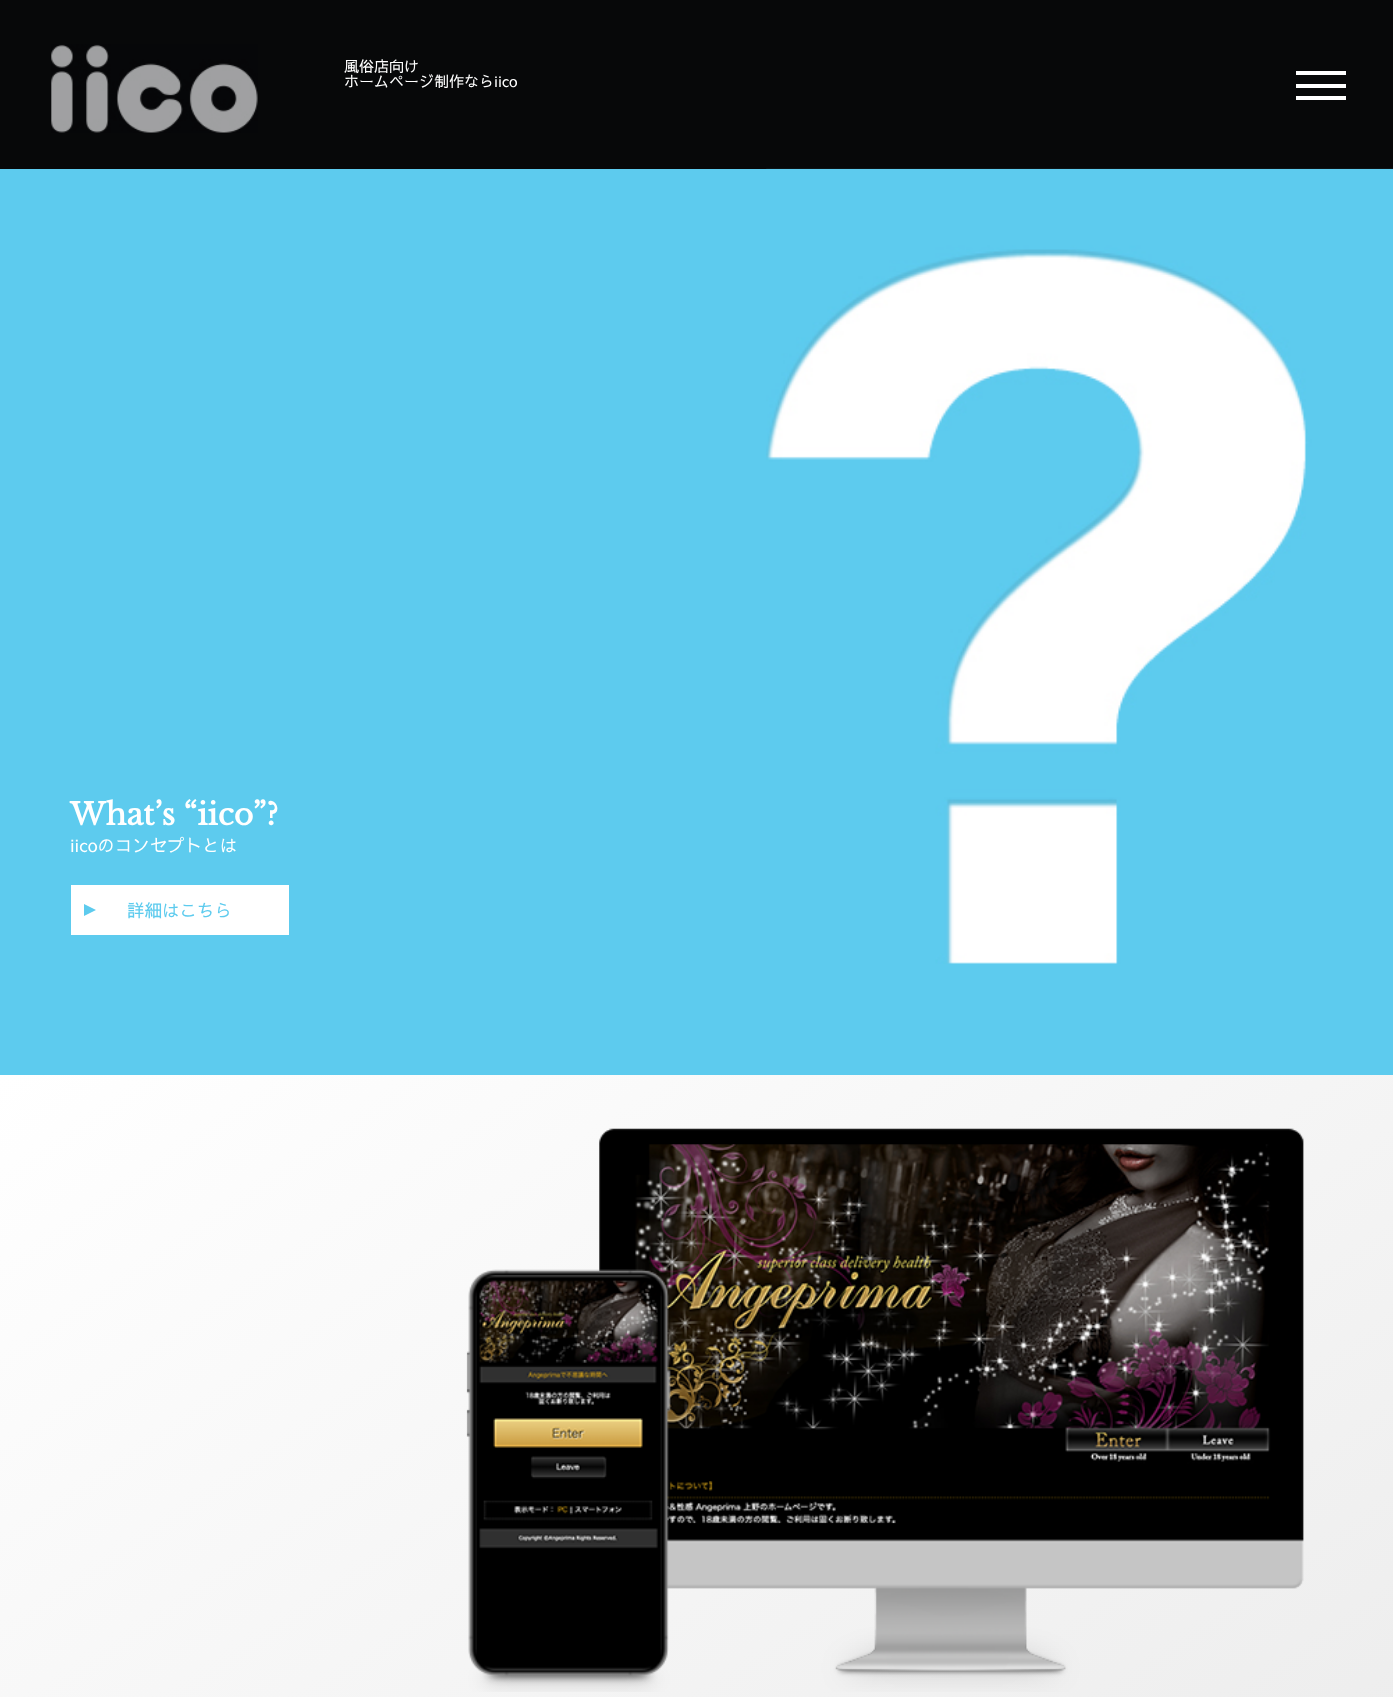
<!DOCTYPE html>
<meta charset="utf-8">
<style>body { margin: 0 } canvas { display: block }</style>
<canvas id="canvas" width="1393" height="1697"></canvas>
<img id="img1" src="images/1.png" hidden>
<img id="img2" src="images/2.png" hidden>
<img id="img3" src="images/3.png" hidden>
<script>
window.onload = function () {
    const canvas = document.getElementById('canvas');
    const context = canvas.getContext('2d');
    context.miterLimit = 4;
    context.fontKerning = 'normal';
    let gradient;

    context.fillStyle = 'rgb(7, 8, 9)';
    context.fillRect(0, 0, 1393, 1697);
    context.drawImage(document.getElementById('img1'), 51, 44, 207, 89);
    context.fillStyle = 'rgb(255, 255, 255)';
    context.fillRect(1296, 84, 50, 4);
    context.fillRect(1296, 71, 50, 4);
    context.fillRect(1296, 96, 50, 4);
    context.fillStyle = 'rgb(93, 203, 238)';
    context.fillRect(0, 169, 1393, 906);
    context.drawImage(document.getElementById('img2'), 766, 168, 627, 796);
    context.fillStyle = 'rgb(255, 255, 255)';
    context.fillRect(71, 885, 218, 50);
    context.fillStyle = 'rgb(93, 203, 238)';
    context.beginPath();
    context.moveTo(84, 916);
    context.lineTo(84, 904);
    context.lineTo(96, 910);
    context.closePath();
    context.fill();
    gradient = context.createLinearGradient(256, 901, 1138, 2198);
    gradient.addColorStop(0, 'rgb(255, 255, 255)');
    gradient.addColorStop(1, 'rgb(234, 234, 234)');
    context.fillStyle = gradient;
    context.fillRect(0, 1075, 1393, 622);
    context.drawImage(document.getElementById('img3'), 466, 1128, 838, 564);
    context.font = '15px Sawarabi Gothic';
    context.fillStyle = 'rgb(255, 255, 255)';
    context.fillText('風俗店向け', 344, 72);
    context.fillText('ホームページ制作ならiico', 344, 87);
    context.font = 'bold 30px Libre Baskerville';
    context.fillText('What’s “iico”?', 70, 825);
    context.font = '17.5px Sawarabi Gothic';
    context.fillText('iicoのコンセプトとは', 70, 852);
    context.fillStyle = 'rgb(93, 203, 238)';
    context.fillText('詳細はこちら', 127, 917);
};
</script>
